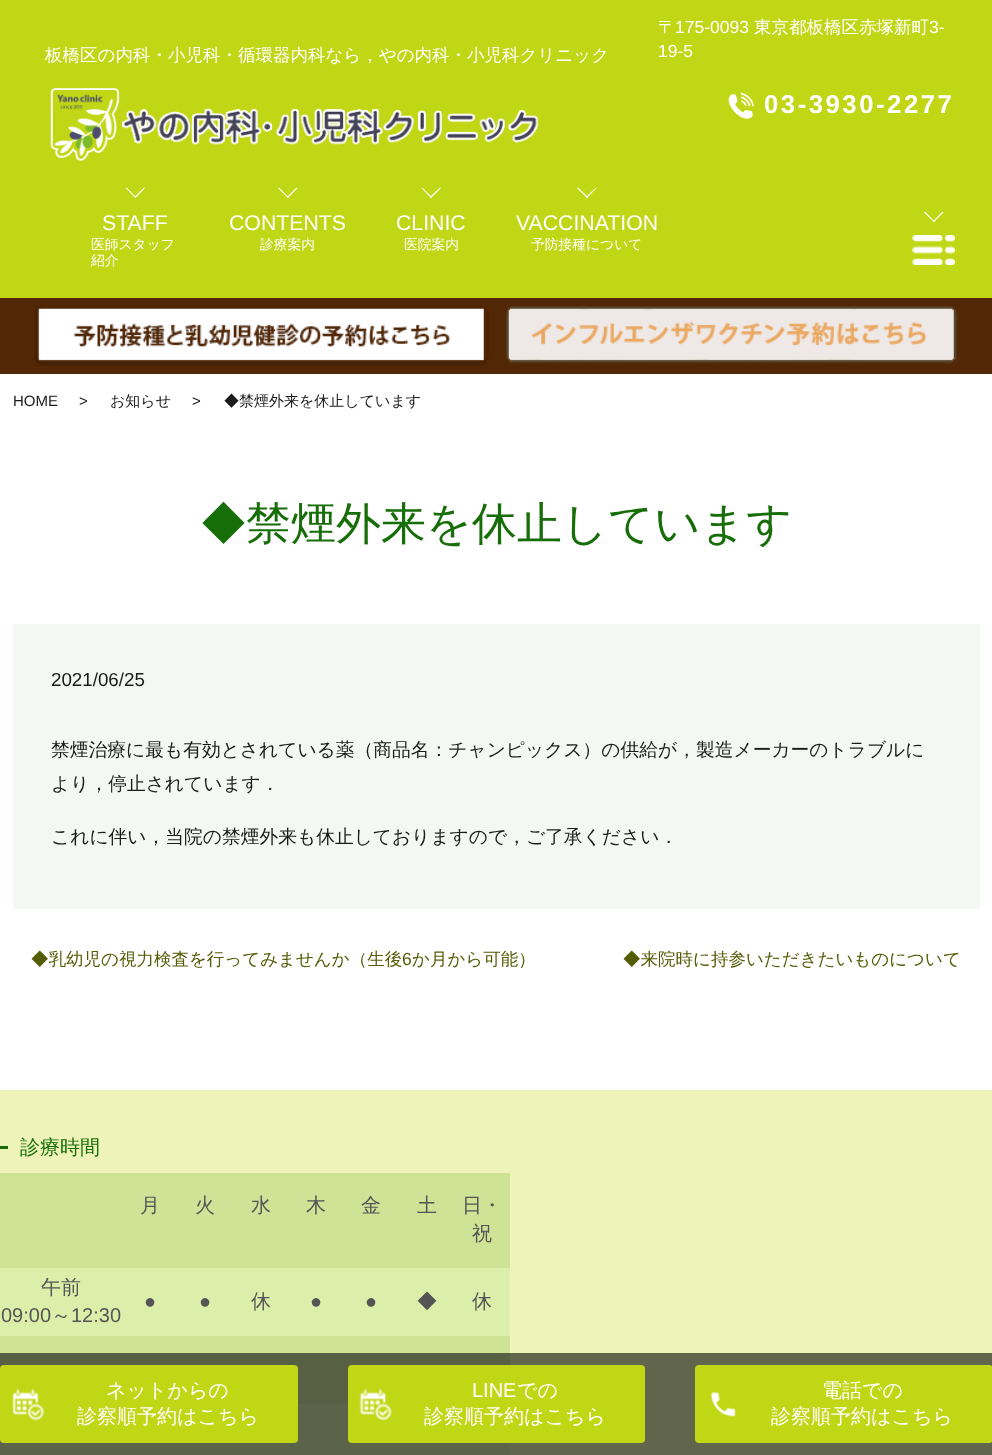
<!DOCTYPE html>
<meta charset="utf-8">
<style>body { margin: 0 } canvas { display: block }</style>
<canvas id="canvas" width="992" height="1455"></canvas>
<img id="img1" src="images/1.png" hidden>
<img id="img2" src="images/2.png" hidden>
<img id="img3" src="images/3.png" hidden>
<img id="img4" src="images/4.png" hidden>
<img id="img5" src="images/5.png" hidden>
<img id="img6" src="images/6.png" hidden>
<img id="img7" src="images/7.png" hidden>
<img id="img8" src="images/8.png" hidden>
<script>
window.onload = function () {
    const canvas = document.getElementById('canvas');
    const context = canvas.getContext('2d');
    context.miterLimit = 4;
    context.fontKerning = 'normal';

    context.fillStyle = 'rgb(255, 255, 255)';
    context.fillRect(0, 0, 992, 1455);
    context.fillStyle = 'rgb(193, 214, 21)';
    context.fillRect(0, 0, 992, 298);
    context.drawImage(document.getElementById('img1'), 50, 88, 489, 73);
    context.fillStyle = 'rgb(255, 255, 255)';
    context.beginPath();
    context.moveTo(144, 187.5);
    context.lineTo(145, 188);
    context.lineTo(135.5, 198);
    context.lineTo(134.5, 197);
    context.closePath();
    context.fill();
    context.beginPath();
    context.moveTo(126.5, 187.5);
    context.lineTo(136, 197);
    context.lineTo(135.5, 198);
    context.lineTo(125.5, 188);
    context.closePath();
    context.fill();
    context.beginPath();
    context.moveTo(296.5, 187.5);
    context.lineTo(297.5, 188);
    context.lineTo(288, 198);
    context.lineTo(287, 197);
    context.closePath();
    context.fill();
    context.beginPath();
    context.moveTo(279, 187.5);
    context.lineTo(288.5, 197);
    context.lineTo(288, 198);
    context.lineTo(278, 188);
    context.closePath();
    context.fill();
    context.beginPath();
    context.moveTo(440, 187.5);
    context.lineTo(441, 188);
    context.lineTo(431, 198);
    context.lineTo(430, 197);
    context.closePath();
    context.fill();
    context.beginPath();
    context.moveTo(422, 187.5);
    context.lineTo(432, 197);
    context.lineTo(431, 198);
    context.lineTo(421.5, 188);
    context.closePath();
    context.fill();
    context.beginPath();
    context.moveTo(596, 187.5);
    context.lineTo(596.5, 188);
    context.lineTo(587, 198);
    context.lineTo(586, 197);
    context.closePath();
    context.fill();
    context.beginPath();
    context.moveTo(578, 187.5);
    context.lineTo(588, 197);
    context.lineTo(587, 198);
    context.lineTo(577, 188);
    context.closePath();
    context.fill();
    context.drawImage(document.getElementById('img2'), 728, 92, 26, 27);
    context.beginPath();
    context.moveTo(942.5, 211.5);
    context.lineTo(943.5, 212.5);
    context.lineTo(934, 222);
    context.lineTo(933, 221.5);
    context.closePath();
    context.fill();
    context.beginPath();
    context.moveTo(925, 211.5);
    context.lineTo(934.5, 221.5);
    context.lineTo(934, 222);
    context.lineTo(924, 212.5);
    context.closePath();
    context.fill();
    context.drawImage(document.getElementById('img3'), 912, 235, 43, 30);
    context.fillStyle = 'rgb(82, 39, 5)';
    context.fillRect(0, 298, 992, 76);
    context.drawImage(document.getElementById('img4'), 34, 305, 455, 61);
    context.drawImage(document.getElementById('img5'), 506, 306, 452, 58);
    context.fillStyle = 'rgb(244, 248, 243)';
    context.fillRect(13, 624, 967, 285);
    context.fillStyle = 'rgb(237, 243, 185)';
    context.fillRect(0, 1090, 992, 365);
    context.fillStyle = 'rgb(23, 110, 9)';
    context.fillRect(0, 1146, 8, 3);
    context.fillStyle = 'rgb(207, 227, 150)';
    context.fillRect(0, 1173, 510, 95);
    context.fillStyle = 'rgb(220, 239, 170)';
    context.fillRect(0, 1268, 510, 68);
    context.fillStyle = 'rgb(207, 227, 150)';
    context.fillRect(0, 1336, 510, 68);
    context.fillStyle = 'rgb(220, 239, 170)';
    context.fillRect(0, 1404, 510, 51);
    context.fillStyle = 'rgba(35, 40, 30, 0.7)';
    context.fillRect(0, 1353, 992, 102);
    context.fillStyle = 'rgb(193, 214, 21)';
    context.beginPath();
    context.roundRect(0, 1365, 298, 78, 4);
    context.fill();
    context.drawImage(document.getElementById('img6'), 12, 1388, 33, 33);
    context.beginPath();
    context.roundRect(348, 1365, 297, 78, 4);
    context.fill();
    context.drawImage(document.getElementById('img7'), 359, 1388, 33, 33);
    context.beginPath();
    context.roundRect(695, 1365, 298, 78, 4);
    context.fill();
    context.drawImage(document.getElementById('img8'), 710, 1392, 26, 25);
    context.font = '500 17.5px WenQuanYi Zen Hei';
    context.fillStyle = 'rgb(255, 255, 255)';
    context.fillText('板橋区の内科・小児科・循環器内科なら，やの内科・小児科クリニック', 45, 61);
    context.font = '21.25px Liberation Sans';
    context.fillText('STAFF', 102, 230);
    context.font = '500 13.75px WenQuanYi Zen Hei';
    context.fillText('医師スタッフ', 91, 249);
    context.fillText('紹介', 91, 265);
    context.font = '21.25px Liberation Sans';
    context.fillText('CONTENTS', 229, 230);
    context.font = '500 13.75px WenQuanYi Zen Hei';
    context.fillText('診療案内', 260, 249);
    context.font = '21.25px Liberation Sans';
    context.fillText('CLINIC', 396, 230);
    context.font = '500 13.75px WenQuanYi Zen Hei';
    context.fillText('医院案内', 404, 249);
    context.font = '21.25px Liberation Sans';
    context.fillText('VACCINATION', 516, 230);
    context.font = '500 13.75px WenQuanYi Zen Hei';
    context.fillText('予防接種について', 531, 249);
    context.font = '500 17.5px WenQuanYi Zen Hei';
    context.fillText('〒', 658, 33);
    context.font = '17.5px Liberation Sans';
    context.fillText('175-0093', 675, 33);
    context.font = '500 17.5px WenQuanYi Zen Hei';
    context.fillText('東京都板橋区赤塚新町', 754, 33);
    context.font = '17.5px Liberation Sans';
    context.fillText('3-', 929, 33);
    context.fillText('19-5', 658, 57);
    context.letterSpacing = '2.5px';
    context.font = 'bold 25.75px Liberation Sans';
    context.fillText('03-3930-2277', 764, 113);
    context.letterSpacing = '0px';
    context.font = '15px Liberation Sans';
    context.fillStyle = 'rgb(27, 27, 27)';
    context.fillText('HOME', 13, 406);
    context.fillText('>', 79, 406);
    context.font = '500 15px WenQuanYi Zen Hei';
    context.fillText('お知らせ', 110, 406);
    context.font = '15px Liberation Sans';
    context.fillText('>', 192, 406);
    context.font = '500 15px WenQuanYi Zen Hei';
    context.fillText('◆禁煙外来を休止しています', 224, 406);
    context.font = '500 45px WenQuanYi Zen Hei';
    context.fillStyle = 'rgb(23, 110, 9)';
    context.fillText('◆禁煙外来を休止しています', 201, 539);
    context.font = '18.75px Liberation Sans';
    context.fillStyle = 'rgb(27, 27, 27)';
    context.fillText('2021/06/25', 51, 686);
    context.font = '500 18.75px WenQuanYi Zen Hei';
    context.fillText('禁煙治療に最も有効とされている薬（商品名：チャンピックス）の供給が，製造メーカーのトラブルに', 51, 756);
    context.fillText('より，停止されています．', 51, 790);
    context.fillText('これに伴い，当院の禁煙外来も休止しておりますので，ご了承ください．', 51, 843);
    context.font = '500 17.5px WenQuanYi Zen Hei';
    context.fillStyle = 'rgb(83, 93, 6)';
    context.fillText('◆乳幼児の視力検査を行ってみませんか（生後', 31, 965);
    context.font = '17.5px Liberation Sans';
    context.fillText('6', 402, 965);
    context.font = '500 17.5px WenQuanYi Zen Hei';
    context.fillText('か月から可能）', 412, 965);
    context.fillText('◆来院時に持参いただきたいものについて', 623, 965);
    context.font = '500 20px WenQuanYi Zen Hei';
    context.fillStyle = 'rgb(23, 110, 9)';
    context.fillText('診療時間', 20, 1154);
    context.fillStyle = 'rgb(85, 85, 85)';
    context.fillText('月', 140, 1212);
    context.fillText('火', 195, 1212);
    context.fillText('水', 251, 1212);
    context.fillText('木', 306, 1212);
    context.fillText('金', 361, 1212);
    context.fillText('土', 417, 1212);
    context.fillText('日・', 462, 1212);
    context.fillText('祝', 472, 1240);
    context.fillText('午前', 41, 1294);
    context.font = '20px Liberation Sans';
    context.fillText('09:00', 1, 1322);
    context.font = '500 20px WenQuanYi Zen Hei';
    context.fillText('～', 51, 1322);
    context.font = '20px Liberation Sans';
    context.fillText('12:30', 71, 1322);
    context.fillText('●', 144, 1308);
    context.fillText('●', 199, 1308);
    context.font = '500 20px WenQuanYi Zen Hei';
    context.fillText('休', 251, 1308);
    context.font = '20px Liberation Sans';
    context.fillText('●', 310, 1308);
    context.fillText('●', 365, 1308);
    context.font = '500 20px WenQuanYi Zen Hei';
    context.fillText('◆', 417, 1308);
    context.fillText('休', 472, 1308);
    context.fillStyle = 'rgb(255, 255, 255)';
    context.fillText('ネットからの', 106, 1397);
    context.fillText('診察順予約はこちら', 77, 1423);
    context.font = '20px Liberation Sans';
    context.fillText('LINE', 472, 1397);
    context.font = '500 20px WenQuanYi Zen Hei';
    context.fillText('での', 517, 1397);
    context.fillText('診察順予約はこちら', 424, 1423);
    context.fillText('電話での', 822, 1397);
    context.fillText('診察順予約はこちら', 771, 1423);
};
</script>
